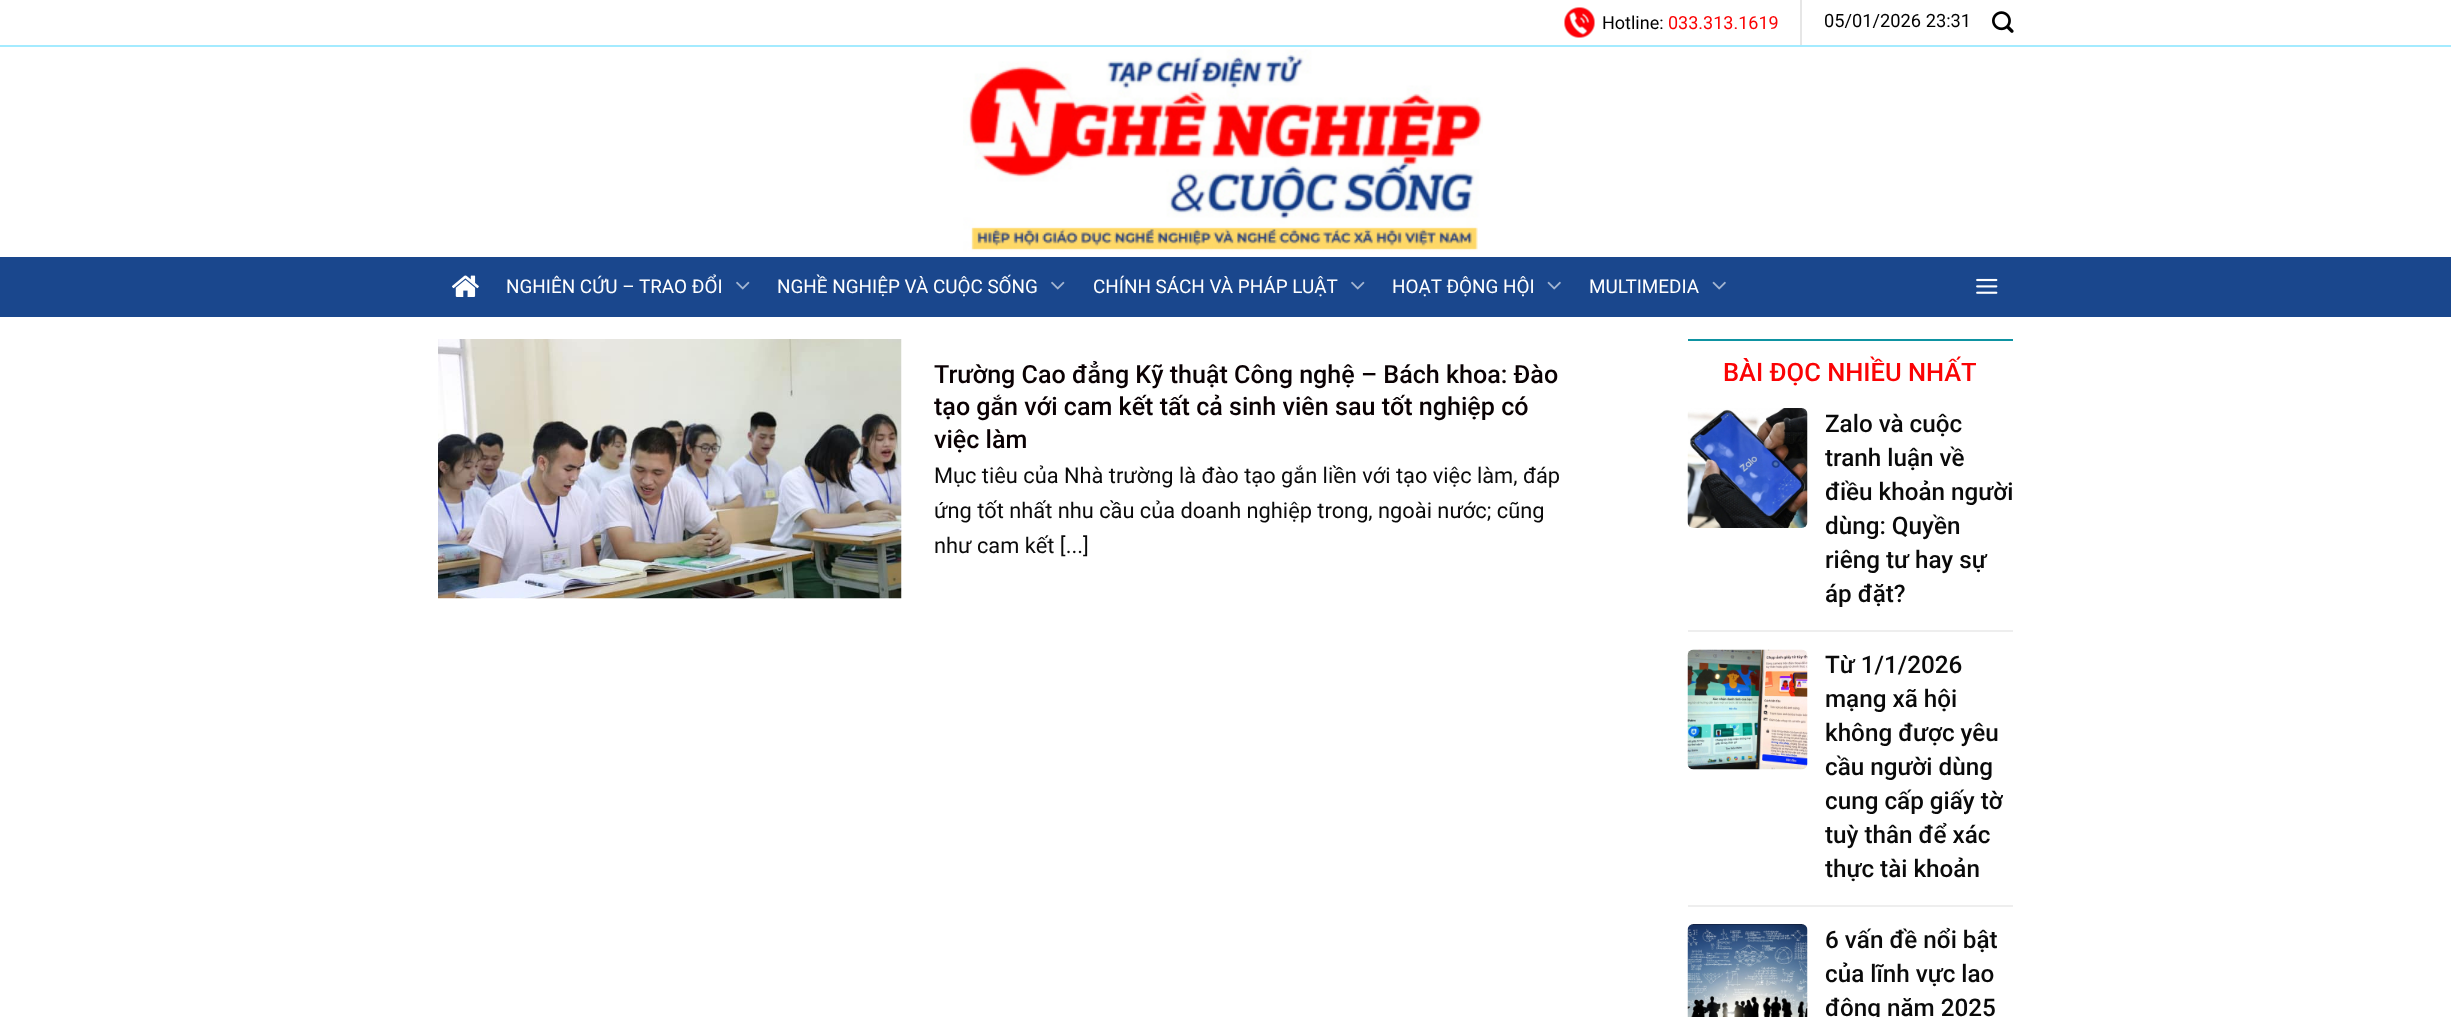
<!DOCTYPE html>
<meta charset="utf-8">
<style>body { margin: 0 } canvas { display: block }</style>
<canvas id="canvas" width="2451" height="1017"></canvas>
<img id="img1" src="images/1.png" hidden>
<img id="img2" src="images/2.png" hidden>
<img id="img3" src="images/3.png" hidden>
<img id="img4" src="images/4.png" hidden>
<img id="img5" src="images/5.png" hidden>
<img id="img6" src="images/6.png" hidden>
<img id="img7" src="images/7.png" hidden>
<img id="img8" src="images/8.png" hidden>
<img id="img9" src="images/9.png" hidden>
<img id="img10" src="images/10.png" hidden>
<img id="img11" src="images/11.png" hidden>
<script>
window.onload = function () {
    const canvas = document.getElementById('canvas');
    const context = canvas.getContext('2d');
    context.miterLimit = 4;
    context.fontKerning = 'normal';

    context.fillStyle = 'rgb(255, 255, 255)';
    context.fillRect(0, 0, 2451, 1017);
    context.fillStyle = 'rgb(164, 235, 255)';
    context.fillRect(0, 45, 2451, 2);
    context.drawImage(document.getElementById('img1'), 1564, 7, 31, 31);
    context.fillStyle = 'rgb(230, 230, 230)';
    context.fillRect(1800, 0, 2, 45);
    context.drawImage(document.getElementById('img2'), 1992, 11, 22, 22);
    context.drawImage(document.getElementById('img3'), 963, 49, 520, 203);
    context.fillStyle = 'rgb(26, 71, 141)';
    context.fillRect(0, 257, 2451, 60);
    context.drawImage(document.getElementById('img4'), 452, 275, 27, 22);
    context.drawImage(document.getElementById('img5'), 736, 281, 14, 9);
    context.drawImage(document.getElementById('img5'), 1051, 281, 14, 9);
    context.drawImage(document.getElementById('img5'), 1351, 281, 14, 9);
    context.drawImage(document.getElementById('img6'), 1547, 281, 14, 9);
    context.drawImage(document.getElementById('img6'), 1712, 281, 14, 9);
    context.drawImage(document.getElementById('img7'), 1976, 278, 22, 16);
    context.drawImage(document.getElementById('img8'), 438, 339, 464, 260);
    context.fillStyle = 'rgb(14, 147, 162)';
    context.fillRect(1688, 339, 325, 2);
    context.fillStyle = 'rgb(238, 238, 238)';
    context.fillRect(1688, 630, 325, 2);
    context.drawImage(document.getElementById('img9'), 1687, 408, 121, 120);
    context.fillRect(1688, 905, 325, 2);
    context.drawImage(document.getElementById('img10'), 1687, 649, 121, 121);
    context.drawImage(document.getElementById('img11'), 1687, 924, 121, 93);
    context.font = '18px Roboto';
    context.fillStyle = 'rgb(0, 0, 0)';
    context.fillText('Hotline:', 1602, 29);
    context.fillStyle = 'rgb(251, 3, 4)';
    context.fillText('033.313.1619', 1668, 29);
    context.font = '18.25px Roboto';
    context.fillStyle = 'rgb(0, 0, 0)';
    context.fillText('05/01/2026 23:31', 1824, 27);
    context.font = '18.9px Roboto';
    context.fillStyle = 'rgb(255, 255, 255)';
    context.fillText('NGHIÊN CỨU – TRAO ĐỔI', 506, 293);
    context.fillText('NGHỀ NGHIỆP VÀ CUỘC SỐNG', 777, 293);
    context.fillText('CHÍNH SÁCH VÀ PHÁP LUẬT', 1093, 293);
    context.fillText('HOẠT ĐỘNG HỘI', 1392, 293);
    context.fillText('MULTIMEDIA', 1589, 293);
    context.font = '500 25.1px Roboto';
    context.fillStyle = 'rgb(10, 1, 3)';
    context.fillText('Trường Cao đẳng Kỹ thuật Công nghệ – Bách khoa: Đào', 934, 383);
    context.fillText('tạo gắn với cam kết tất cả sinh viên sau tốt nghiệp có', 934, 415);
    context.fillText('việc làm', 934, 448);
    context.font = '21.8px Roboto';
    context.fillStyle = 'rgb(10, 10, 10)';
    context.fillText('Mục tiêu của Nhà trường là đào tạo gắn liền với tạo việc làm, đáp', 934, 483);
    context.fillText('ứng tốt nhất nhu cầu của doanh nghiệp trong, ngoài nước; cũng', 934, 518);
    context.fillText('như cam kết [...]', 934, 553);
    context.font = '500 25.5px Roboto';
    context.fillStyle = 'rgb(251, 3, 4)';
    context.fillText('BÀI ĐỌC NHIỀU NHẤT', 1723, 381);
    context.font = '500 24.25px Roboto';
    context.fillStyle = 'rgb(10, 10, 10)';
    context.fillText('Zalo và cuộc', 1825, 432);
    context.fillText('tranh luận về', 1825, 466);
    context.fillText('điều khoản người', 1825, 500);
    context.fillText('dùng: Quyền', 1825, 534);
    context.fillText('riêng tư hay sự', 1825, 568);
    context.fillText('áp đặt?', 1825, 602);
    context.fillText('Từ 1/1/2026', 1825, 673);
    context.fillText('mạng xã hội', 1825, 707);
    context.fillText('không được yêu', 1825, 741);
    context.fillText('cầu người dùng', 1825, 775);
    context.fillText('cung cấp giấy tờ', 1825, 809);
    context.fillText('tuỳ thân để xác', 1825, 843);
    context.fillText('thực tài khoản', 1825, 877);
    context.fillText('6 vấn đề nổi bật', 1825, 948);
    context.fillText('của lĩnh vực lao', 1825, 982);
    context.fillText('động năm 2025', 1825, 1016);
};
</script>
